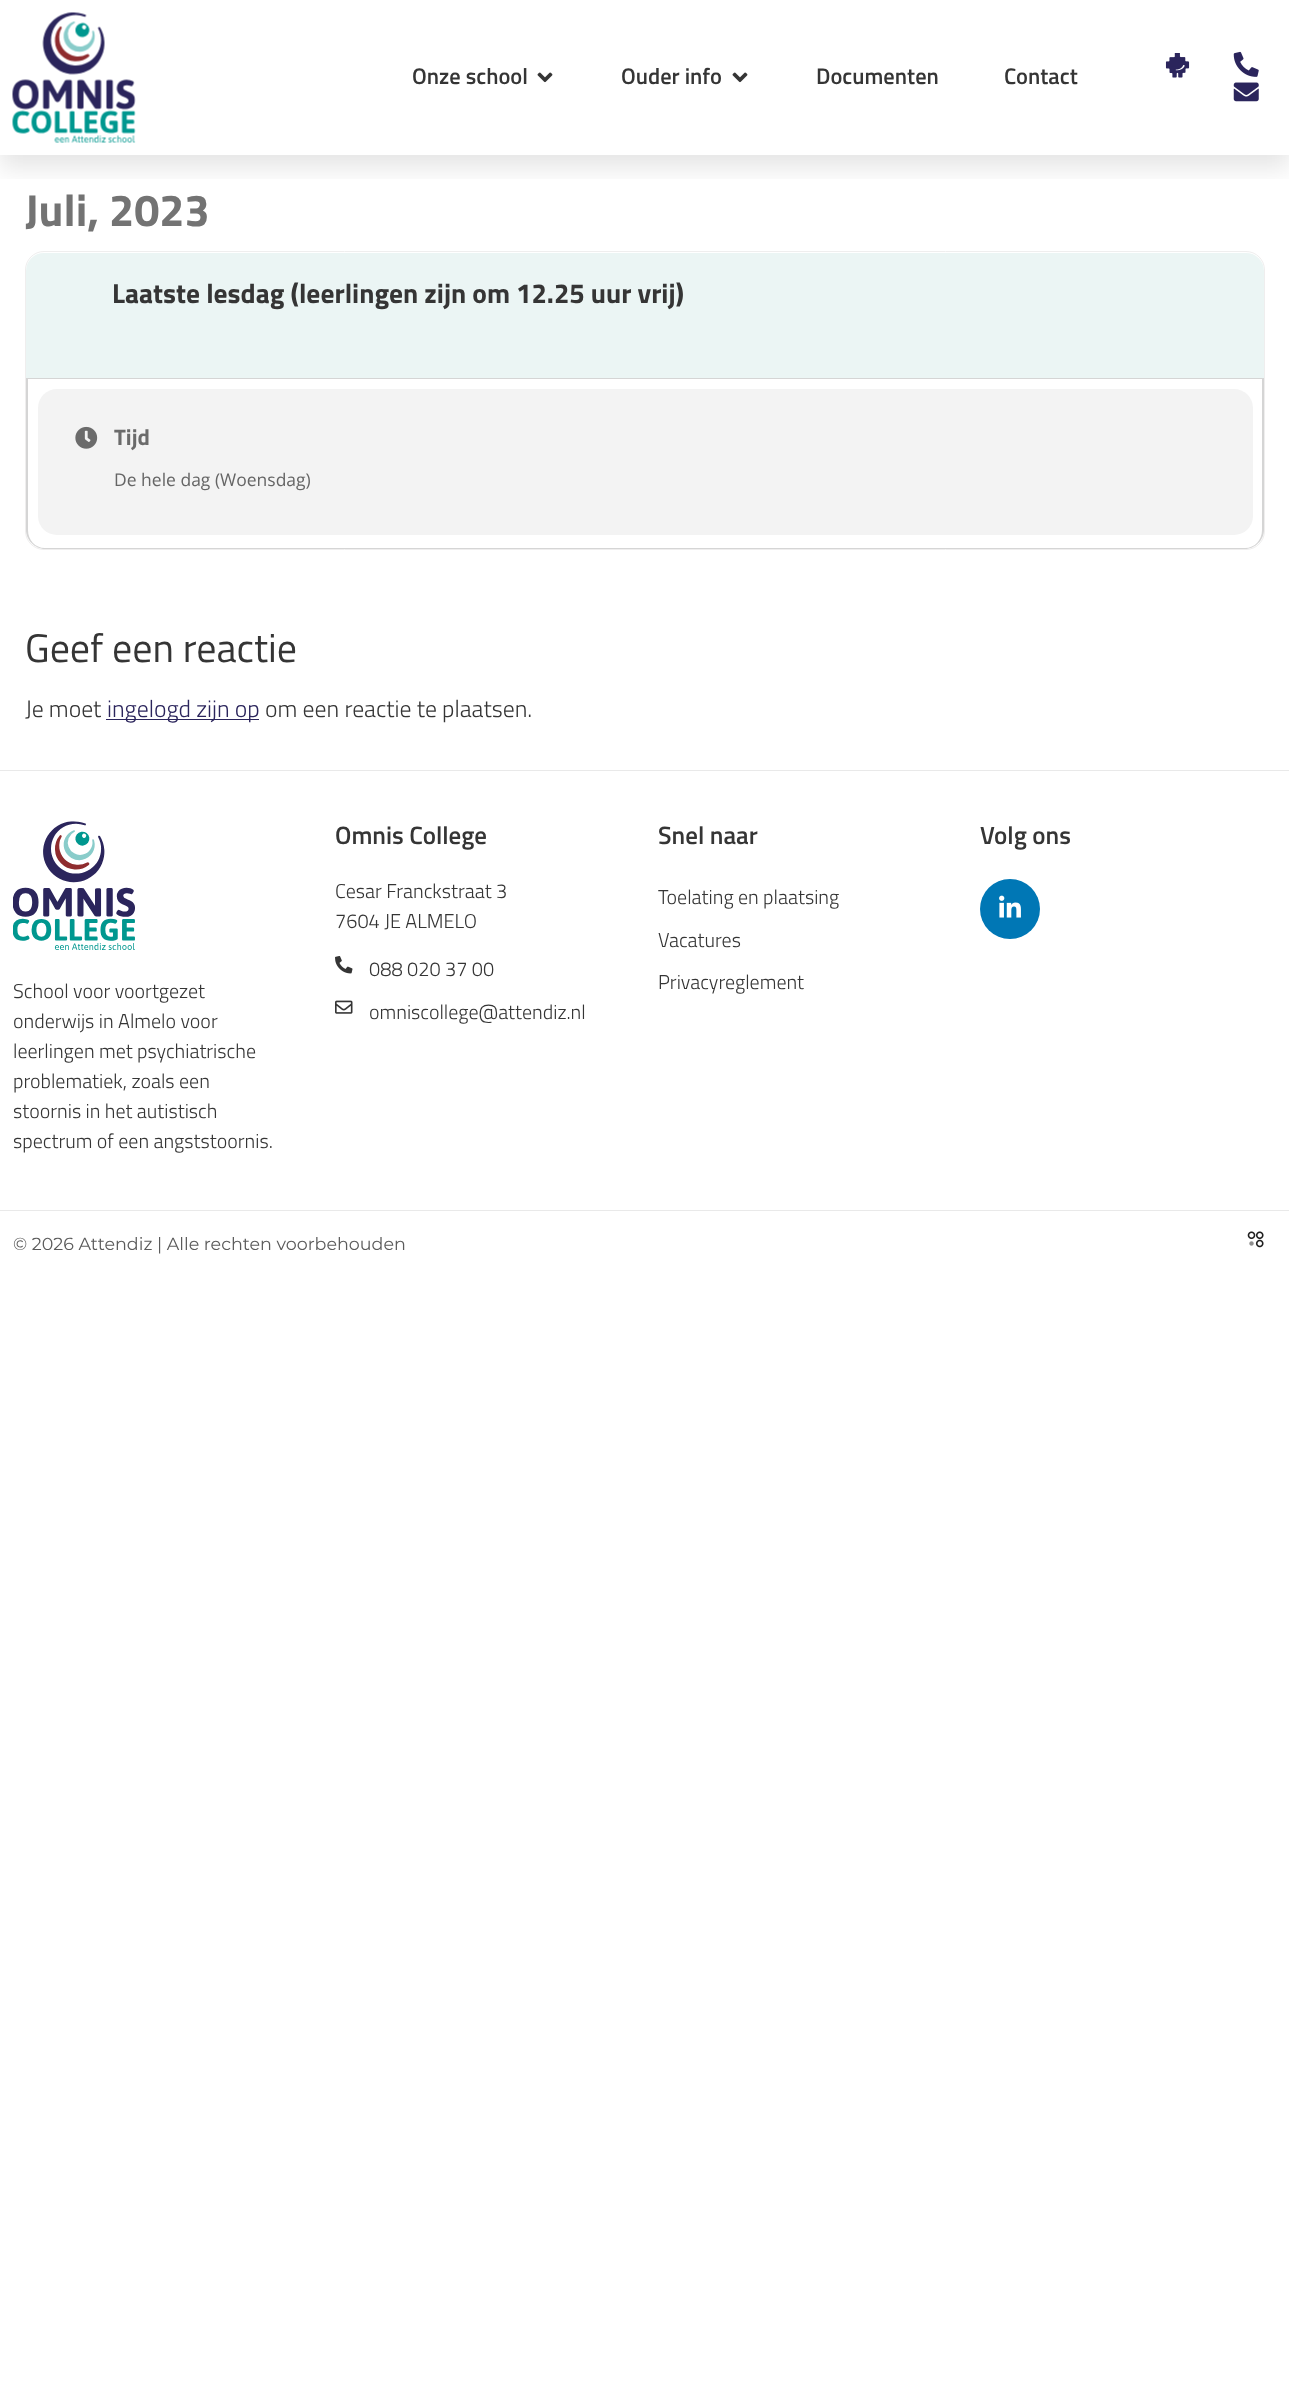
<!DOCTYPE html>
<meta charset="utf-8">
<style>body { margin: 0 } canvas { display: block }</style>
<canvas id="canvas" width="1289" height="2401"></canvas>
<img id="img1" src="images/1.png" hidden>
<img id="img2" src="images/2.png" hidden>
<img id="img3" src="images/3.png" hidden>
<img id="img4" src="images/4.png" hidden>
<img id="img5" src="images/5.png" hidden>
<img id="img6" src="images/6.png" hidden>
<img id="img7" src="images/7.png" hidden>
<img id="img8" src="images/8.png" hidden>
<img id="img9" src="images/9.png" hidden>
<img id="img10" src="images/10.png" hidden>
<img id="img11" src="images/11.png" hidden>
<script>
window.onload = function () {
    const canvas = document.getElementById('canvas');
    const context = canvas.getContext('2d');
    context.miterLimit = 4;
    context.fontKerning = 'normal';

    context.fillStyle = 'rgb(255, 255, 255)';
    context.fillRect(0, 0, 1289, 2401);
    context.save();
    context.beginPath();
    context.rect(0, 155, 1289, 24);
    context.clip();
    context.fillStyle = 'rgba(0, 0, 0, 0.1)';
    context.filter = 'blur(12.5px)';
    context.beginPath();
    context.rect(0, 13, 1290, 155);
    context.fill();
    context.filter = 'none';
    context.restore();
    context.drawImage(document.getElementById('img1'), 12, 12, 124, 131);
    context.drawImage(document.getElementById('img2'), 537, 72, 16, 11);
    context.drawImage(document.getElementById('img2'), 732, 72, 16, 11);
    context.drawImage(document.getElementById('img3'), 1165, 53, 25, 25);
    context.drawImage(document.getElementById('img4'), 1233, 51, 26, 26);
    context.drawImage(document.getElementById('img5'), 1233, 82, 26, 20);
    context.beginPath();
    context.roundRect(25.5, 251.5, 1239, 298, 18.5);
    context.strokeStyle = 'rgb(239, 238, 238)';
    context.stroke();
    context.fillStyle = 'rgb(213, 213, 213)';
    context.fillRect(26, 378, 1238, 1);
    context.fillStyle = 'rgb(235, 245, 244)';
    context.beginPath();
    context.roundRect(26, 253, 1238, 125, [18, 18, 0, 0]);
    context.fill();
    context.fillStyle = 'rgb(213, 213, 213)';
    context.beginPath();
    context.moveTo(26, 379);
    context.lineTo(1264, 379);
    context.lineTo(1264, 530);
    context.bezierCurveTo(1264, 540, 1255, 549, 1245, 549);
    context.lineTo(45, 549);
    context.bezierCurveTo(35, 549, 26, 540, 26, 530);
    context.closePath();
    context.moveTo(28, 379);
    context.lineTo(1262, 379);
    context.lineTo(1262, 530);
    context.bezierCurveTo(1262, 540, 1255, 548, 1245, 548);
    context.lineTo(45, 548);
    context.bezierCurveTo(35, 548, 28, 540, 28, 530);
    context.closePath();
    context.fill('evenodd');
    context.fillStyle = 'rgb(243, 243, 243)';
    context.beginPath();
    context.roundRect(38, 389, 1215, 146, 19);
    context.fill();
    context.drawImage(document.getElementById('img6'), 75, 426, 23, 23);
    context.fillStyle = 'rgb(43, 37, 92)';
    context.fillRect(106, 719, 153, 1);
    context.fillStyle = 'rgb(233, 233, 233)';
    context.fillRect(0, 770, 1289, 1);
    context.drawImage(document.getElementById('img7'), 335, 956, 18, 18);
    context.drawImage(document.getElementById('img8'), 335, 1000, 18, 14);
    context.fillStyle = 'rgb(0, 119, 181)';
    context.beginPath();
    context.arc(1010, 909, 30, 0, 2 * Math.PI);
    context.fill();
    context.drawImage(document.getElementById('img9'), 999, 895, 22, 23);
    context.drawImage(document.getElementById('img10'), 13, 821, 122, 129);
    context.fillStyle = 'rgb(233, 233, 233)';
    context.fillRect(0, 1210, 1289, 1);
    context.drawImage(document.getElementById('img11'), 1247, 1231, 17, 17);
    context.font = '600 22.5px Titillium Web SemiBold';
    context.fillStyle = 'rgb(53, 53, 53)';
    context.fillText('Onze school', 412, 84);
    context.fillText('Ouder info', 621, 84);
    context.fillText('Documenten', 816, 84);
    context.fillText('Contact', 1004, 84);
    context.font = 'bold 45px Titillium Web';
    context.fillStyle = 'rgb(115, 115, 115)';
    context.fillText('Juli, 2023', 25, 226);
    context.font = 'bold 27.5px Titillium Web';
    context.fillStyle = 'rgb(53, 53, 53)';
    context.fillText('Laatste lesdag (leerlingen zijn om 12.25 uur vrij)', 112, 303);
    context.font = 'bold 22.5px Titillium Web';
    context.fillStyle = 'rgb(107, 107, 107)';
    context.fillText('Tijd', 114, 445);
    context.font = '17.5px Open Sans';
    context.fillStyle = 'rgb(101, 101, 101)';
    context.fillText('De hele dag (Woensdag)', 114, 486);
    context.font = '40px Titillium Web';
    context.fillStyle = 'rgb(53, 53, 53)';
    context.fillText('Geef een reactie', 25, 662);
    context.font = '300 23.75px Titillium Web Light';
    context.fillText('Je moet', 25, 717);
    context.fillStyle = 'rgb(43, 37, 92)';
    context.fillText('ingelogd zijn op', 107, 717);
    context.fillStyle = 'rgb(53, 53, 53)';
    context.fillText('om een reactie te plaatsen.', 265, 717);
    context.font = '600 25px Titillium Web SemiBold';
    context.fillText('Omnis College', 335, 844);
    context.font = '300 20px Titillium Web Light';
    context.fillText('Cesar Franckstraat 3', 335, 898);
    context.fillText('7604 JE ALMELO', 335, 928);
    context.fillText('088 020 37 00', 369, 976);
    context.fillText('omniscollege@attendiz.nl', 369, 1019);
    context.font = '600 25px Titillium Web SemiBold';
    context.fillText('Snel naar', 658, 844);
    context.font = '300 20px Titillium Web Light';
    context.fillText('Toelating en plaatsing', 658, 904);
    context.fillText('Vacatures', 658, 947);
    context.fillText('Privacyreglement', 658, 989);
    context.font = '600 25px Titillium Web SemiBold';
    context.fillText('Volg ons', 980, 844);
    context.font = '300 20px Titillium Web Light';
    context.fillText('School voor voortgezet', 13, 998);
    context.fillText('onderwijs in Almelo voor', 13, 1028);
    context.fillText('leerlingen met psychiatrische', 13, 1058);
    context.fillText('problematiek, zoals een', 13, 1088);
    context.fillText('stoornis in het autistisch', 13, 1118);
    context.fillText('spectrum of een angststoornis.', 13, 1148);
    context.font = '17.5px Montserrat';
    context.fillStyle = 'rgb(91, 91, 91)';
    context.fillText('© 2026 Attendiz | Alle rechten voorbehouden', 13, 1250);
};
</script>
